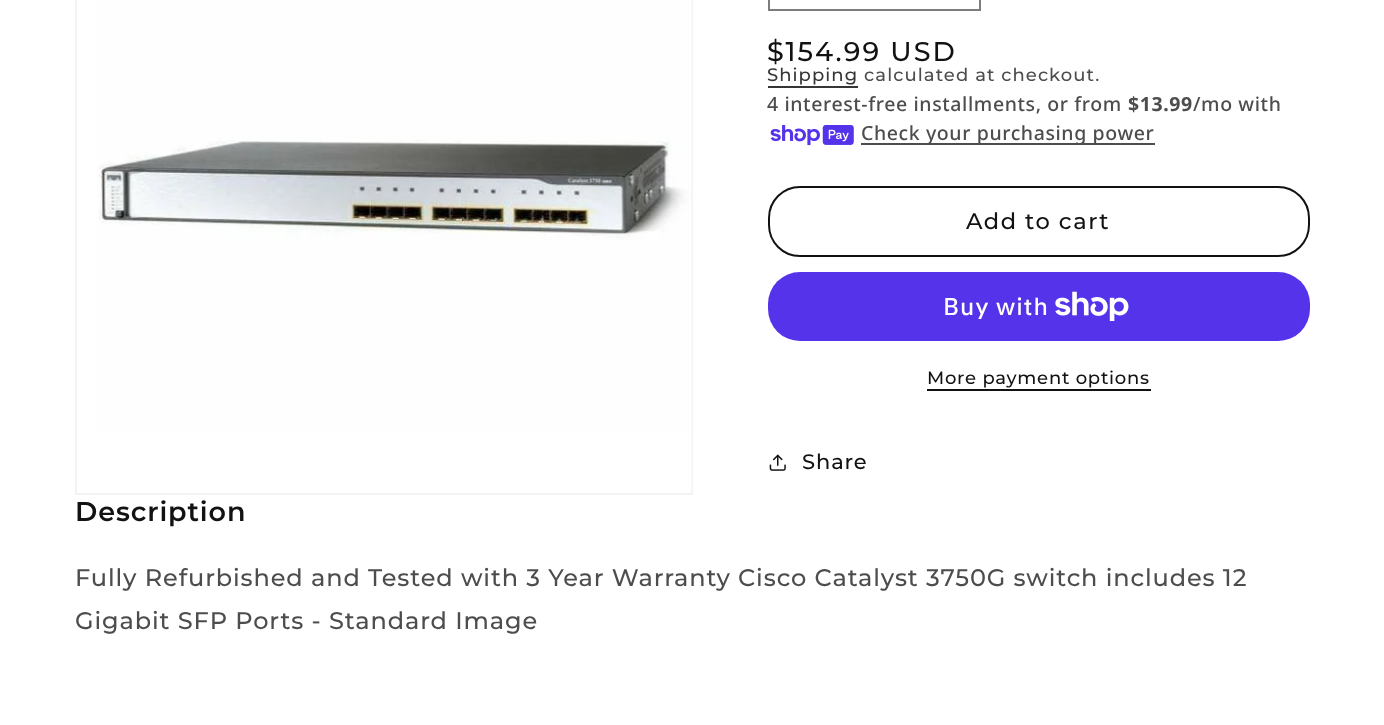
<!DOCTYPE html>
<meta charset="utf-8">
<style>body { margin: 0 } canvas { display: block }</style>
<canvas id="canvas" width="1384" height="725"></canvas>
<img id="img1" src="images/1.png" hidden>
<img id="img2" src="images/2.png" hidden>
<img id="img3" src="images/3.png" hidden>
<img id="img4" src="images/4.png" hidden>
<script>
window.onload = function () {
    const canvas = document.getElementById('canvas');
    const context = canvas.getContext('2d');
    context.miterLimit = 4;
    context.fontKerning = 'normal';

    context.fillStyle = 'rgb(255, 255, 255)';
    context.fillRect(0, 0, 1384, 725);
    context.strokeStyle = 'rgb(243, 243, 243)';
    context.lineWidth = 2;
    context.strokeRect(76, -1, 616, 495);
    context.drawImage(document.getElementById('img1'), 97, 0, 595, 493);
    context.strokeStyle = 'rgb(125, 125, 125)';
    context.strokeRect(769, -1, 211, 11);
    context.fillStyle = 'rgb(54, 54, 54)';
    context.fillRect(768, 86, 90, 2);
    context.drawImage(document.getElementById('img2'), 770, 125, 84, 21);
    context.fillStyle = 'rgb(77, 77, 77)';
    context.fillRect(861, 143, 294, 2);
    context.beginPath();
    context.roundRect(769, 187, 540, 69, 31);
    context.strokeStyle = 'rgb(18, 18, 18)';
    context.stroke();
    context.fillStyle = 'rgb(84, 51, 235)';
    context.beginPath();
    context.roundRect(768, 272, 542, 69, 32);
    context.fill();
    context.drawImage(document.getElementById('img3'), 1055, 291, 74, 30);
    context.fillStyle = 'rgb(18, 18, 18)';
    context.fillRect(927, 389, 224, 2);
    context.drawImage(document.getElementById('img4'), 769, 454, 17, 17);
    context.letterSpacing = '2px';
    context.font = '500 27px Montserrat';
    context.fillText('$154.99 USD', 767, 61);
    context.letterSpacing = '1.05px';
    context.font = '500 18px Montserrat';
    context.fillStyle = 'rgb(54, 54, 54)';
    context.fillText('Shipping', 767, 81);
    context.fillStyle = 'rgb(77, 77, 77)';
    context.fillText('calculated at checkout.', 864, 81);
    context.letterSpacing = '0.6px';
    context.font = '500 19.5px Noto Sans';
    context.fillText('4 interest-free installments, or from', 767, 111);
    context.font = 'bold 19.5px Noto Sans';
    context.fillText('$13.99', 1128, 111);
    context.font = '500 19.5px Noto Sans';
    context.fillText('/mo with', 1193, 111);
    context.fillText('Check your purchasing power', 861, 140);
    context.letterSpacing = '1.5px';
    context.font = '500 22.5px Montserrat';
    context.fillStyle = 'rgb(18, 18, 18)';
    context.fillText('Add to cart', 966, 229);
    context.letterSpacing = '0.9px';
    context.font = '500 24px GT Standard';
    context.fillStyle = 'rgb(255, 255, 255)';
    context.fillText('Buy with', 943, 315);
    context.letterSpacing = '0.75px';
    context.font = '500 18px Montserrat';
    context.fillStyle = 'rgb(18, 18, 18)';
    context.fillText('More payment options', 927, 384);
    context.letterSpacing = '0.9px';
    context.font = '500 21px Montserrat';
    context.fillText('Share', 802, 469);
    context.font = '600 27px Montserrat';
    context.fillText('Description', 75, 521);
    context.font = '500 24px Montserrat';
    context.fillStyle = 'rgb(77, 77, 77)';
    context.fillText('Fully Refurbished and Tested with 3 Year Warranty Cisco Catalyst 3750G switch includes 12', 75, 586);
    context.fillText('Gigabit SFP Ports - Standard Image', 75, 629);
};
</script>
